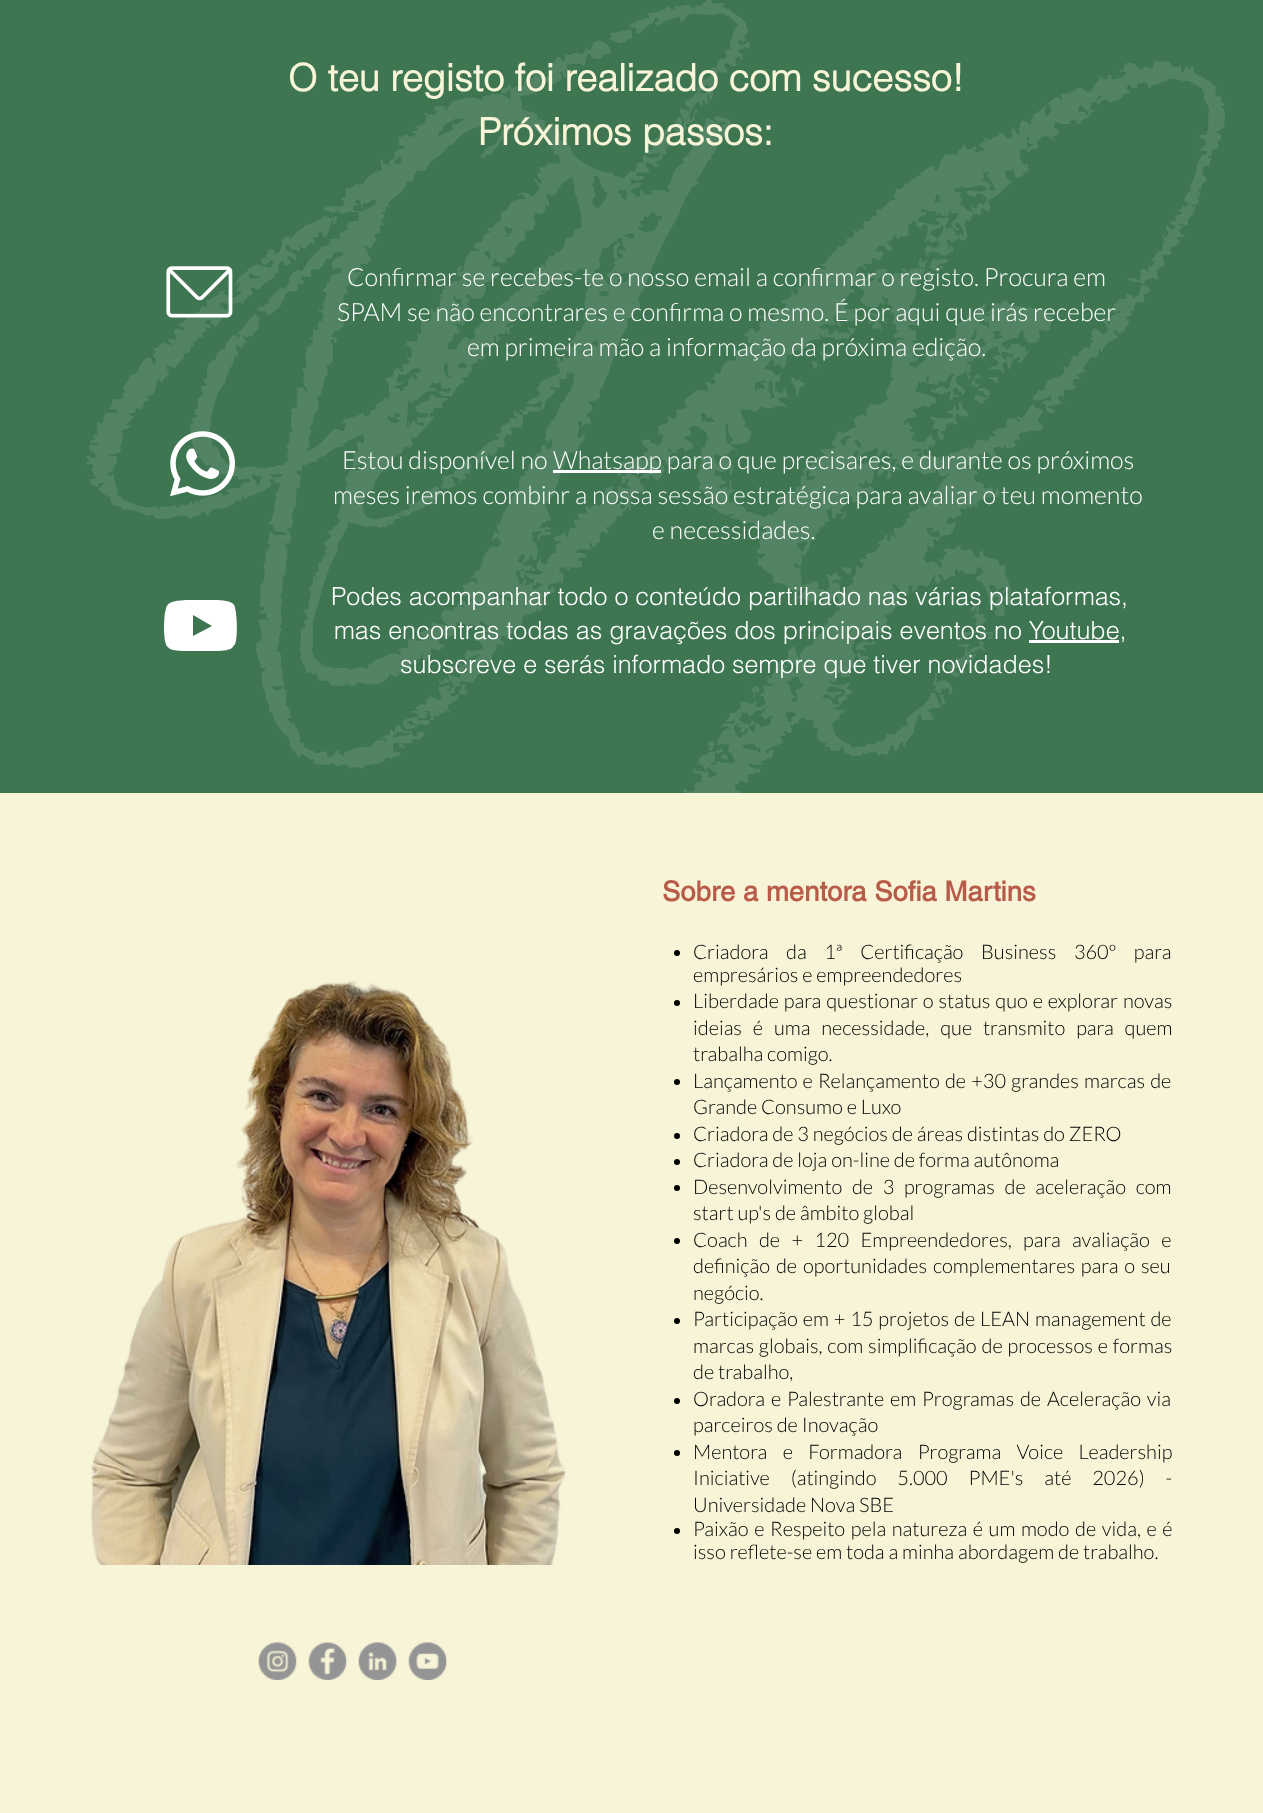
<!DOCTYPE html>
<meta charset="utf-8">
<style>body { margin: 0 } canvas { display: block }</style>
<canvas id="canvas" width="1263" height="1813"></canvas>
<img id="img1" src="images/1.png" hidden>
<img id="img2" src="images/2.png" hidden>
<img id="img3" src="images/3.png" hidden>
<img id="img4" src="images/4.png" hidden>
<img id="img5" src="images/5.png" hidden>
<img id="img6" src="images/6.png" hidden>
<img id="img7" src="images/7.png" hidden>
<img id="img8" src="images/8.png" hidden>
<script>
window.onload = function () {
    const canvas = document.getElementById('canvas');
    const context = canvas.getContext('2d');
    context.miterLimit = 4;
    context.fontKerning = 'normal';

    context.fillStyle = 'rgb(247, 244, 215)';
    context.fillRect(0, 0, 1263, 1813);
    context.fillStyle = 'rgb(63, 118, 82)';
    context.fillRect(0, 0, 1263, 793);
    context.drawImage(document.getElementById('img1'), 86, 0, 1139, 793);
    context.drawImage(document.getElementById('img2'), 166, 266, 67, 52);
    context.drawImage(document.getElementById('img3'), 170, 431, 65, 66);
    context.fillStyle = 'rgb(255, 255, 255)';
    context.fillRect(553, 470, 108, 3);
    context.beginPath();
    context.moveTo(193, 615);
    context.lineTo(193, 636);
    context.lineTo(212, 626);
    context.closePath();
    context.moveTo(202, 600);
    context.bezierCurveTo(209, 600, 227, 599, 232, 603);
    context.bezierCurveTo(234, 604, 235, 606, 235, 608);
    context.bezierCurveTo(237, 615, 238, 638, 235, 644);
    context.lineTo(232, 648);
    context.bezierCurveTo(227, 652, 210, 651, 204, 651);
    context.lineTo(182, 651);
    context.bezierCurveTo(166, 650, 165, 647, 164, 631);
    context.bezierCurveTo(164, 624, 164, 615, 166, 608);
    context.bezierCurveTo(168, 600, 179, 601, 186, 600);
    context.closePath();
    context.fill('evenodd');
    context.fillRect(1029, 640, 90, 3);
    context.drawImage(document.getElementById('img4'), 91, 981, 475, 584);
    context.fillStyle = 'rgb(0, 0, 0)';
    context.beginPath();
    context.arc(677, 953, 3, 0, 2 * Math.PI);
    context.fill();
    context.beginPath();
    context.arc(677, 1003, 3, 0, 2 * Math.PI);
    context.fill();
    context.beginPath();
    context.arc(677, 1082, 3, 0, 2 * Math.PI);
    context.fill();
    context.beginPath();
    context.arc(677, 1136, 3, 0, 2 * Math.PI);
    context.fill();
    context.beginPath();
    context.arc(677, 1162, 3, 0, 2 * Math.PI);
    context.fill();
    context.beginPath();
    context.arc(677, 1188, 3, 0, 2 * Math.PI);
    context.fill();
    context.beginPath();
    context.arc(677, 1241, 3, 0, 2 * Math.PI);
    context.fill();
    context.beginPath();
    context.arc(677, 1321, 3, 0, 2 * Math.PI);
    context.fill();
    context.beginPath();
    context.arc(677, 1401, 3, 0, 2 * Math.PI);
    context.fill();
    context.beginPath();
    context.arc(677, 1453, 3, 0, 2 * Math.PI);
    context.fill();
    context.beginPath();
    context.arc(677, 1531, 3, 0, 2 * Math.PI);
    context.fill();
    context.drawImage(document.getElementById('img5'), 258, 1642, 39, 38);
    context.drawImage(document.getElementById('img6'), 308, 1642, 39, 38);
    context.drawImage(document.getElementById('img7'), 358, 1642, 39, 38);
    context.drawImage(document.getElementById('img8'), 408, 1642, 39, 38);
    context.font = 'bold 37.5px helvetica';
    context.fillStyle = 'rgb(247, 244, 215)';
    context.fillText('O teu registo foi realizado com sucesso!', 288, 91);
    context.fillText('Próximos passos:', 478, 145);
    context.font = '300 25px Lato';
    context.fillStyle = 'rgb(255, 255, 255)';
    context.fillText('Confirmar se recebes-te o nosso email a confirmar o registo. Procura em', 347, 286);
    context.fillText('SPAM se não encontrares e confirma o mesmo. É por aqui que irás receber', 337, 321);
    context.fillText('em primeira mão a informação da próxima edição.', 467, 356);
    context.fillText('Estou disponível no', 342, 469);
    context.fillText('Whatsapp para o que precisares, e durante os próximos', 553, 469);
    context.fillText('meses iremos combinr a nossa sessão estratégica para avaliar o teu momento', 333, 504);
    context.fillText('e necessidades.', 652, 539);
    context.font = '300 25px helvetica';
    context.fillText('Podes acompanhar todo o conteúdo partilhado nas várias plataformas,', 331, 605);
    context.fillText('mas encontras todas as gravações dos principais eventos no Youtube,', 334, 639);
    context.fillText('subscreve e serás informado sempre que tiver novidades!', 400, 673);
    context.font = 'bold 27.5px "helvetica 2"';
    context.fillStyle = 'rgb(185, 91, 73)';
    context.fillText('Sobre a mentora Sofia Martins', 662, 901);
    context.wordSpacing = '13.75px';
    context.font = '300 20px Lato';
    context.fillStyle = 'rgb(0, 0, 0)';
    context.fillText('Criadora da 1ª Certificação Business 360º para', 693, 959);
    context.wordSpacing = '0px';
    context.fillText('empresários e empreendedores', 693, 982);
    context.wordSpacing = '1px';
    context.fillText('Liberdade para questionar o status quo e explorar novas', 693, 1008);
    context.wordSpacing = '7px';
    context.fillText('ideias é uma necessidade, que transmito para quem', 693, 1035);
    context.wordSpacing = '0px';
    context.fillText('trabalha comigo.', 693, 1061);
    context.wordSpacing = '1.25px';
    context.fillText('Lançamento e Relançamento de +30 grandes marcas de', 693, 1088);
    context.wordSpacing = '0px';
    context.fillText('Grande Consumo e Luxo', 693, 1114);
    context.fillText('Criadora de 3 negócios de áreas distintas do ZERO', 693, 1141);
    context.fillText('Criadora de loja on-line de forma autônoma', 693, 1167);
    context.wordSpacing = '5.75px';
    context.fillText('Desenvolvimento de 3 programas de aceleração com', 693, 1194);
    context.wordSpacing = '0px';
    context.fillText('start up\'s de âmbito global', 693, 1220);
    context.wordSpacing = '7.5px';
    context.fillText('Coach de + 120 Empreendedores, para avaliação e', 693, 1247);
    context.wordSpacing = '2px';
    context.fillText('definição de oportunidades complementares para o seu', 693, 1273);
    context.wordSpacing = '0px';
    context.fillText('negócio.', 693, 1300);
    context.wordSpacing = '1px';
    context.fillText('Participação em + 15 projetos de LEAN management de', 693, 1326);
    context.fillText('marcas globais, com simplificação de processos e formas', 693, 1353);
    context.wordSpacing = '0px';
    context.fillText('de trabalho,', 693, 1379);
    context.wordSpacing = '2px';
    context.fillText('Oradora e Palestrante em Programas de Aceleração via', 693, 1406);
    context.wordSpacing = '0px';
    context.fillText('parceiros de Inovação', 693, 1432);
    context.wordSpacing = '11.5px';
    context.fillText('Mentora e Formadora Programa Voice Leadership', 693, 1459);
    context.wordSpacing = '17px';
    context.fillText('Iniciative (atingindo 5.000 PME\'s até 2026) -', 693, 1485);
    context.wordSpacing = '0px';
    context.fillText('Universidade Nova SBE', 693, 1512);
    context.wordSpacing = '1.75px';
    context.fillText('Paixão e Respeito pela natureza é um modo de vida, e é', 693, 1536);
    context.wordSpacing = '0px';
    context.fillText('isso reflete-se em toda a minha abordagem de trabalho.', 693, 1559);
};
</script>
